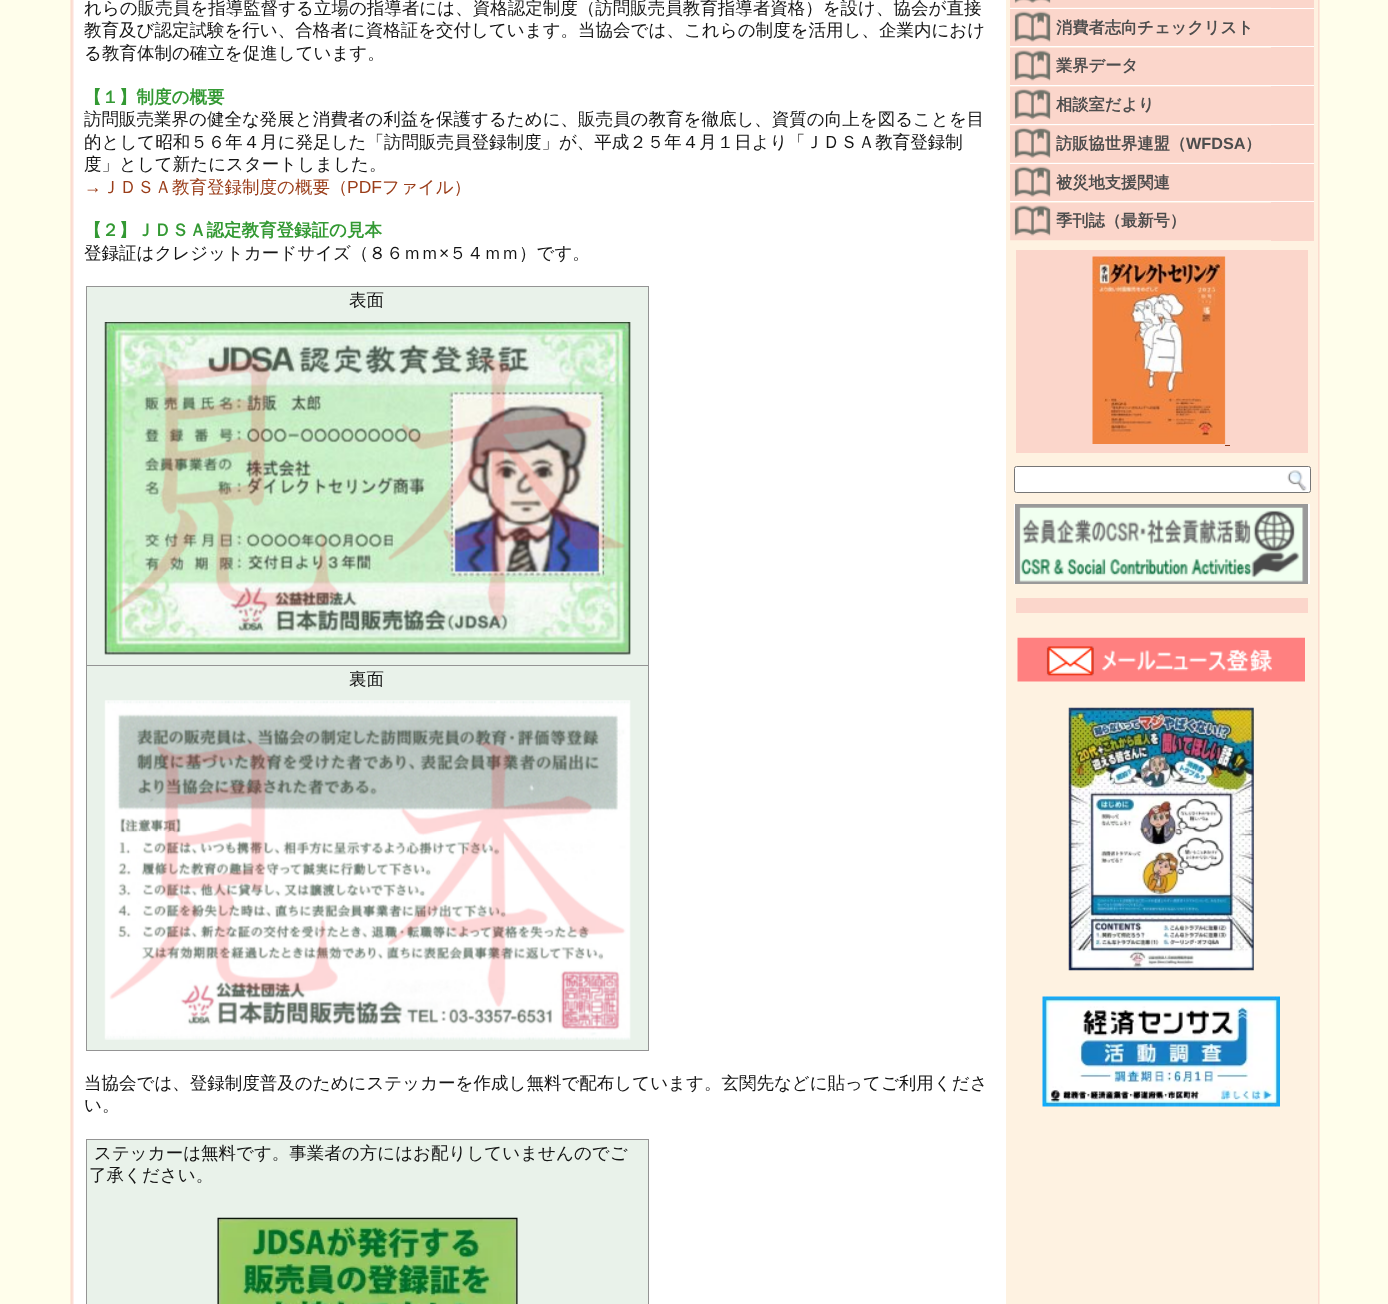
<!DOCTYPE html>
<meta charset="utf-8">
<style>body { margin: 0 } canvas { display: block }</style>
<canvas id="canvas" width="1388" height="1304"></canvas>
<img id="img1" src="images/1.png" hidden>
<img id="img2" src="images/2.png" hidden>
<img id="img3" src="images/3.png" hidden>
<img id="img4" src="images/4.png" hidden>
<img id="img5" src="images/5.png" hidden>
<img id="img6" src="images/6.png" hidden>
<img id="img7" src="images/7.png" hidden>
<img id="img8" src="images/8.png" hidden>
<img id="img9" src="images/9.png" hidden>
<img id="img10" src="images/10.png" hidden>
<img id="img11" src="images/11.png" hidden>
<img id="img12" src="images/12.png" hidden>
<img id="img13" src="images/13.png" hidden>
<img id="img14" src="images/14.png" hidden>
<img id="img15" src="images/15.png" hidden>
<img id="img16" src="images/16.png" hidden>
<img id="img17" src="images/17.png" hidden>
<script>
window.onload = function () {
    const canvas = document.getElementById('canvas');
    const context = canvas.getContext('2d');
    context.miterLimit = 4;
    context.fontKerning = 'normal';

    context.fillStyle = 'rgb(255, 254, 235)';
    context.fillRect(0, 0, 1388, 1304);
    context.drawImage(document.getElementById('img1'), 70, 0, 936, 1304);
    context.fillStyle = 'rgb(233, 242, 234)';
    context.fillRect(87, 287, 561, 763);
    context.fillStyle = 'rgb(148, 148, 148)';
    context.fillRect(86, 286, 563, 1);
    context.fillRect(86, 665, 563, 1);
    context.fillRect(648, 665, 1, 386);
    context.fillRect(648, 286, 1, 380);
    context.fillRect(86, 1050, 563, 1);
    context.fillRect(86, 665, 1, 386);
    context.fillRect(86, 286, 1, 380);
    context.drawImage(document.getElementById('img2'), 104, 322, 527, 333);
    context.drawImage(document.getElementById('img3'), 104, 700, 527, 340);
    context.fillStyle = 'rgb(233, 242, 234)';
    context.fillRect(87, 1140, 561, 164);
    context.fillStyle = 'rgb(148, 148, 148)';
    context.fillRect(86, 1139, 563, 1);
    context.fillRect(648, 1139, 1, 165);
    context.fillRect(86, 1139, 1, 165);
    context.drawImage(document.getElementById('img4'), 217, 1217, 301, 87);
    context.fillStyle = 'rgb(254, 242, 225)';
    context.fillRect(1006, 0, 312, 1304);
    context.drawImage(document.getElementById('img5'), 1010, 0, 261, 8);
    context.fillStyle = 'rgb(251, 214, 203)';
    context.fillRect(1271, 0, 43, 8);
    context.fillStyle = 'rgb(255, 255, 255)';
    context.fillRect(1010, 8, 304, 1);
    context.drawImage(document.getElementById('img6'), 1010, 9, 261, 37);
    context.fillStyle = 'rgb(251, 214, 203)';
    context.fillRect(1271, 9, 43, 37);
    context.fillStyle = 'rgb(255, 255, 255)';
    context.fillRect(1010, 46, 304, 1);
    context.drawImage(document.getElementById('img7'), 1010, 47, 261, 38);
    context.fillStyle = 'rgb(251, 214, 203)';
    context.fillRect(1271, 47, 43, 38);
    context.fillStyle = 'rgb(255, 255, 255)';
    context.fillRect(1010, 85, 304, 1);
    context.drawImage(document.getElementById('img8'), 1010, 86, 261, 38);
    context.fillStyle = 'rgb(251, 214, 203)';
    context.fillRect(1271, 86, 43, 38);
    context.fillStyle = 'rgb(255, 255, 255)';
    context.fillRect(1010, 124, 304, 1);
    context.drawImage(document.getElementById('img9'), 1010, 125, 261, 38);
    context.fillStyle = 'rgb(251, 214, 203)';
    context.fillRect(1271, 125, 43, 38);
    context.fillStyle = 'rgb(255, 255, 255)';
    context.fillRect(1010, 163, 304, 1);
    context.drawImage(document.getElementById('img6'), 1010, 164, 261, 37);
    context.fillStyle = 'rgb(251, 214, 203)';
    context.fillRect(1271, 164, 43, 37);
    context.fillStyle = 'rgb(255, 255, 255)';
    context.fillRect(1010, 201, 304, 1);
    context.drawImage(document.getElementById('img10'), 1010, 202, 261, 39);
    context.fillStyle = 'rgb(251, 214, 203)';
    context.fillRect(1271, 202, 43, 39);
    context.fillRect(1016, 250, 292, 203);
    context.drawImage(document.getElementById('img11'), 1092, 256, 134, 188);
    context.fillStyle = 'rgb(140, 56, 23)';
    context.fillRect(1225, 445, 5, 1);
    context.fillStyle = 'rgb(255, 255, 255)';
    context.beginPath();
    context.roundRect(1014.5, 466.5, 296, 26, 2);
    context.fill();
    context.strokeStyle = 'rgb(118, 118, 118)';
    context.stroke();
    context.drawImage(document.getElementById('img12'), 1287, 470, 20, 21);
    context.fillRect(1014, 504, 296, 80);
    context.drawImage(document.getElementById('img13'), 1015, 504, 293, 80);
    context.fillStyle = 'rgb(251, 214, 203)';
    context.fillRect(1016, 598, 292, 15);
    context.drawImage(document.getElementById('img14'), 1017, 637, 288, 45);
    context.drawImage(document.getElementById('img15'), 1068, 707, 186, 264);
    context.drawImage(document.getElementById('img16'), 1042, 996, 238, 111);
    context.drawImage(document.getElementById('img17'), 1318, 0, 2, 1304);
    context.font = '500 17.5px WenQuanYi Zen Hei';
    context.fillStyle = 'rgb(20, 20, 20)';
    context.fillText('れらの販売員を指導監督する立場の指導者には、資格認定制度（訪問販売員教育指導者資格）を設け、協会が直接', 84, 14);
    context.fillText('教育及び認定試験を行い、合格者に資格証を交付しています。当協会では、これらの制度を活用し、企業内におけ', 84, 36);
    context.fillText('る教育体制の確立を促進しています。', 84, 59);
    context.font = 'bold 17.5px WenQuanYi Zen Hei';
    context.fillStyle = 'rgb(51, 153, 51)';
    context.fillText('【１】制度の概要', 84, 103);
    context.font = '500 17.5px WenQuanYi Zen Hei';
    context.fillStyle = 'rgb(20, 20, 20)';
    context.fillText('訪問販売業界の健全な発展と消費者の利益を保護するために、販売員の教育を徹底し、資質の向上を図ることを目', 84, 125);
    context.fillText('的として昭和５６年４月に発足した「訪問販売員登録制度」が、平成２５年４月１日より「ＪＤＳＡ教育登録制', 84, 148);
    context.fillText('度」として新たにスタートしました。', 84, 170);
    context.font = '17.5px Liberation Sans';
    context.fillStyle = 'rgb(154, 61, 25)';
    context.fillText('→', 84, 193);
    context.font = '500 17.5px WenQuanYi Zen Hei';
    context.fillText('ＪＤＳＡ教育登録制度の概要（', 102, 193);
    context.font = '17.5px Liberation Sans';
    context.fillText('PDF', 347, 193);
    context.font = '500 17.5px WenQuanYi Zen Hei';
    context.fillText('ファイル）', 382, 193);
    context.font = 'bold 17.5px WenQuanYi Zen Hei';
    context.fillStyle = 'rgb(51, 153, 51)';
    context.fillText('【２】ＪＤＳＡ認定教育登録証の見本', 84, 236);
    context.font = '500 17.5px WenQuanYi Zen Hei';
    context.fillStyle = 'rgb(20, 20, 20)';
    context.fillText('登録証はクレジットカードサイズ（８６ｍｍ', 84, 259);
    context.font = '17.5px Liberation Sans';
    context.fillText('×', 439, 259);
    context.font = '500 17.5px WenQuanYi Zen Hei';
    context.fillText('５４ｍｍ）です。', 449, 259);
    context.fillText('表面', 349, 306);
    context.fillText('裏面', 349, 685);
    context.fillText('当協会では、登録制度普及のためにステッカーを作成し無料で配布しています。玄関先などに貼ってご利用くださ', 84, 1089);
    context.fillText('い。', 84, 1111);
    context.fillText('ステッカーは無料です。事業者の方にはお配りしていませんのでご', 94, 1159);
    context.fillText('了承ください。', 89, 1181);
    context.font = 'bold 16.25px WenQuanYi Zen Hei';
    context.fillStyle = 'rgb(77, 77, 77)';
    context.fillText('消費者志向チェックリスト', 1056, 33);
    context.fillText('業界データ', 1056, 71);
    context.fillText('相談室だより', 1056, 110);
    context.fillText('訪販協世界連盟（', 1056, 149);
    context.font = 'bold 16.25px Liberation Sans';
    context.fillText('WFDSA', 1186, 149);
    context.font = 'bold 16.25px WenQuanYi Zen Hei';
    context.fillText('）', 1245, 149);
    context.fillText('被災地支援関連', 1056, 188);
    context.fillText('季刊誌（最新号）', 1056, 226);
};
</script>
